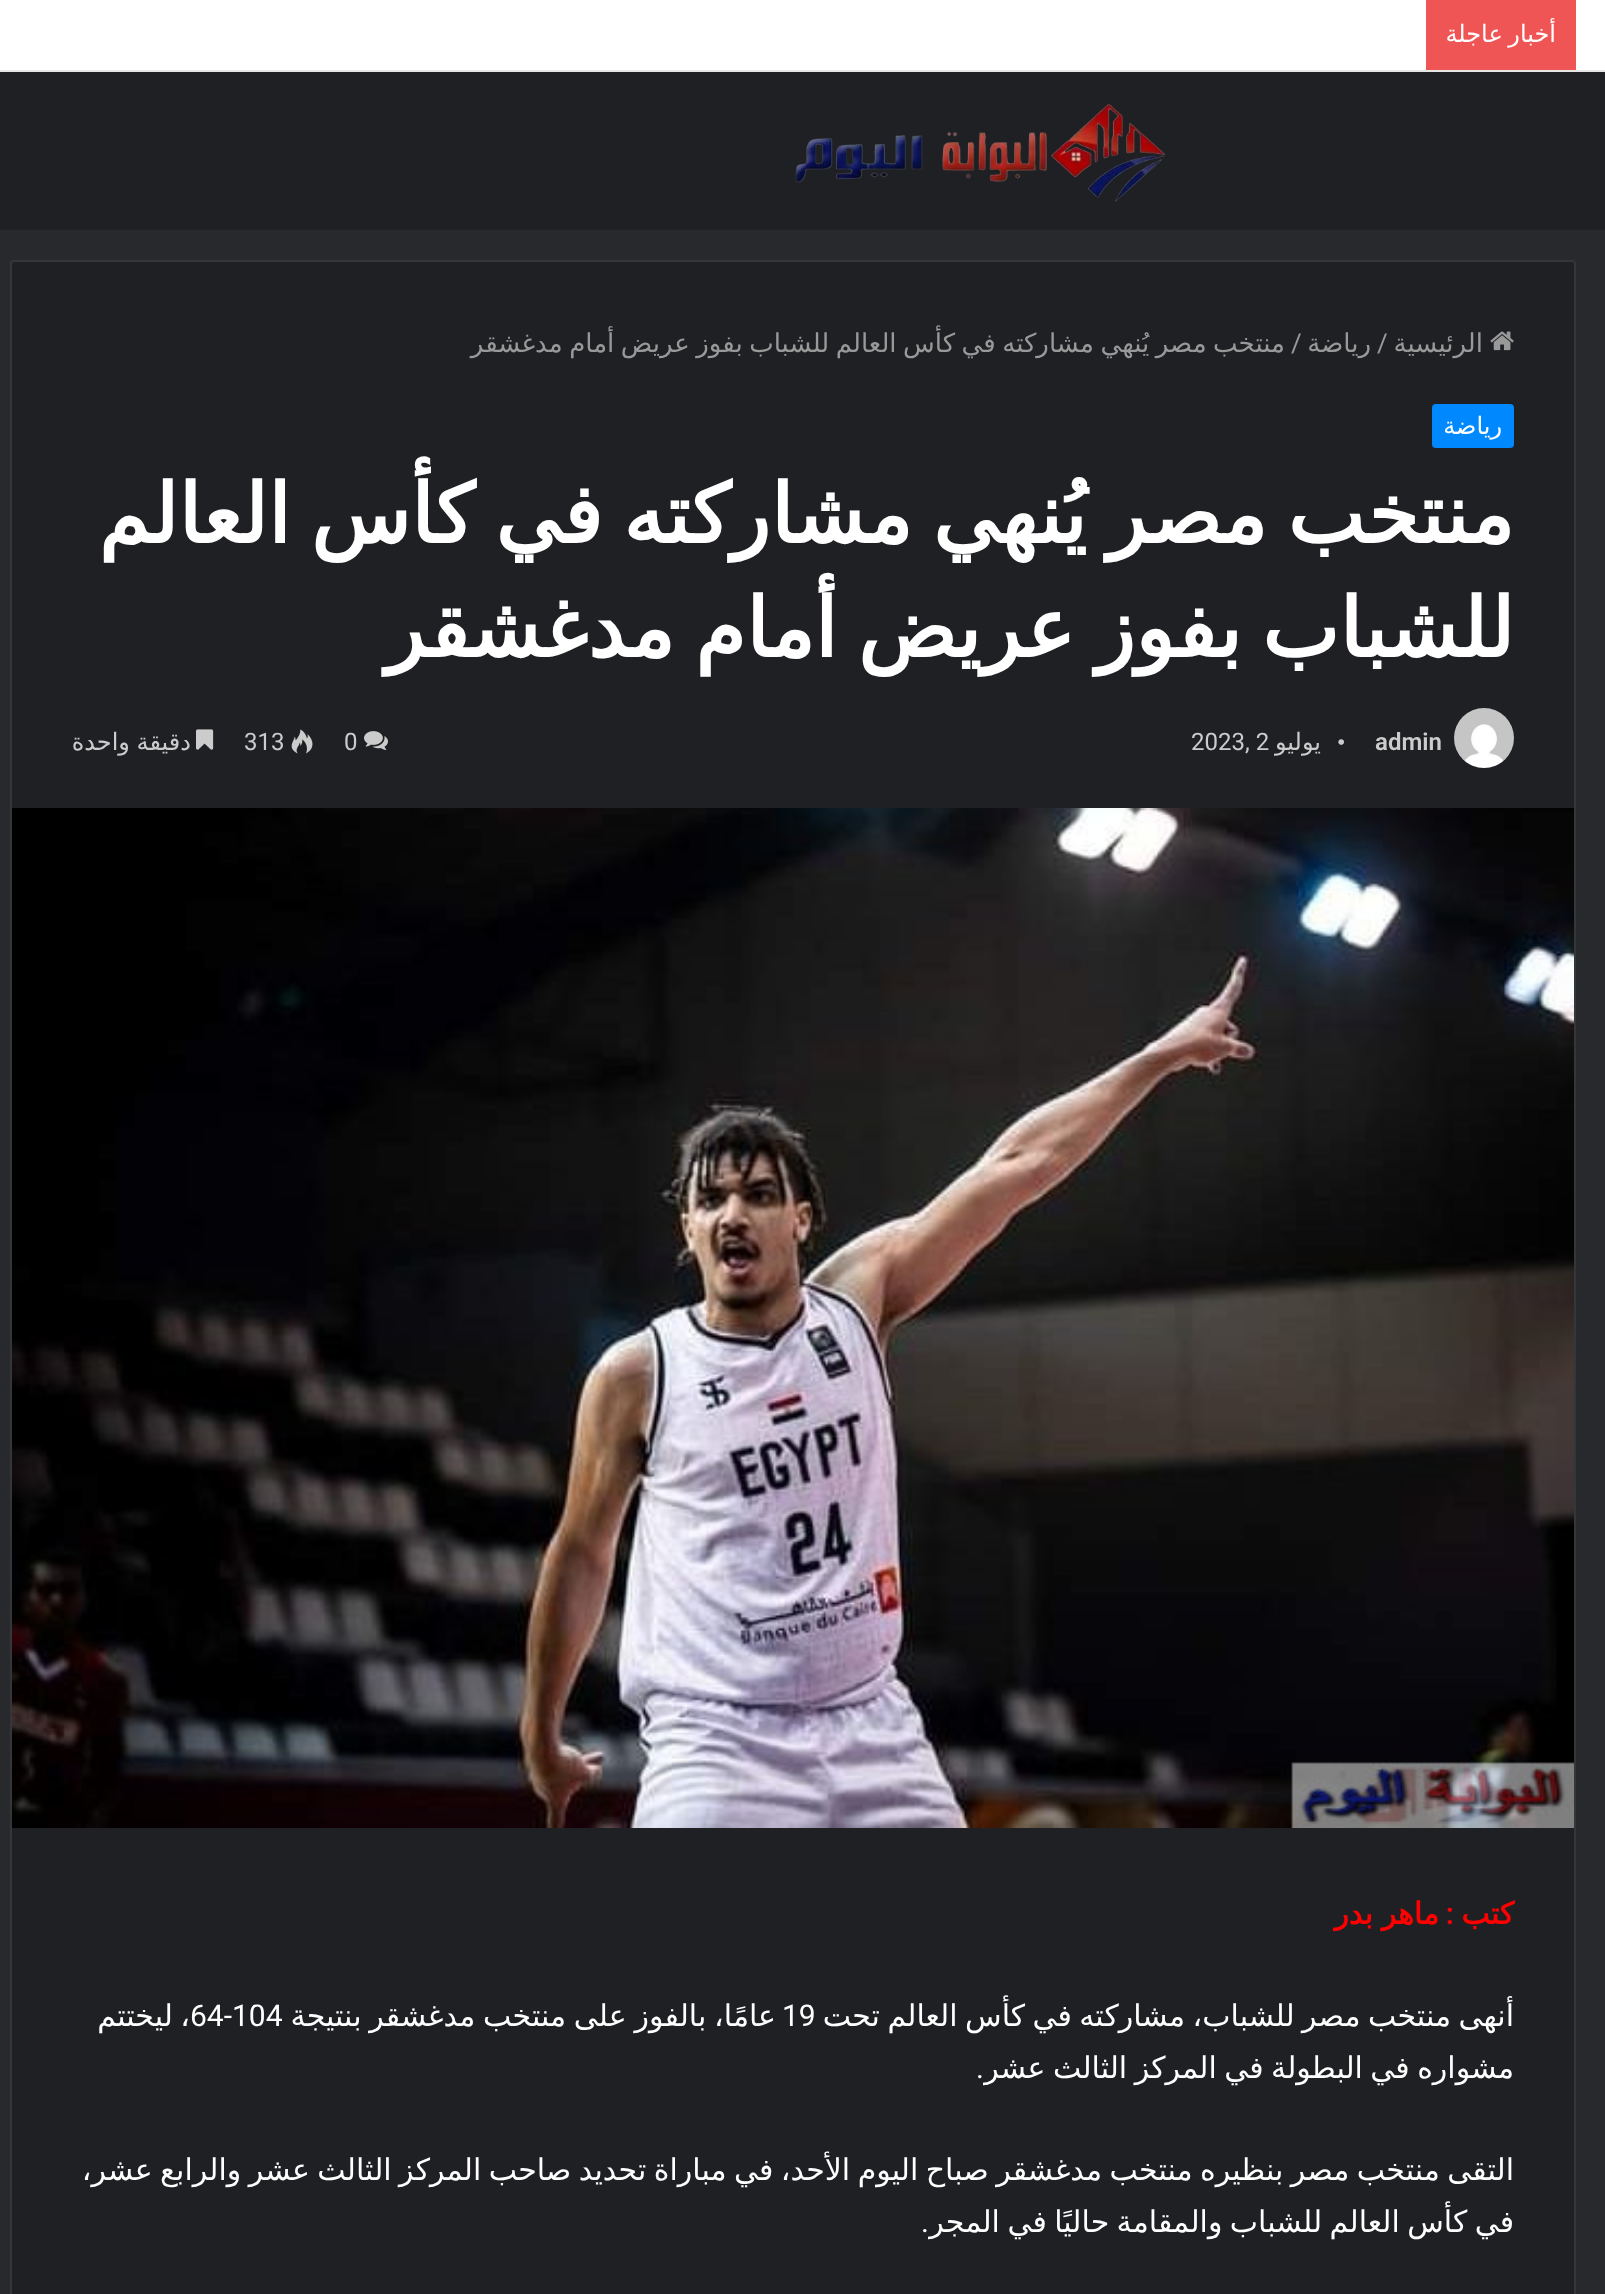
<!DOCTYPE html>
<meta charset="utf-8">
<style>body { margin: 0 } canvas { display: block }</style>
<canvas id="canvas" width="1605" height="2294"></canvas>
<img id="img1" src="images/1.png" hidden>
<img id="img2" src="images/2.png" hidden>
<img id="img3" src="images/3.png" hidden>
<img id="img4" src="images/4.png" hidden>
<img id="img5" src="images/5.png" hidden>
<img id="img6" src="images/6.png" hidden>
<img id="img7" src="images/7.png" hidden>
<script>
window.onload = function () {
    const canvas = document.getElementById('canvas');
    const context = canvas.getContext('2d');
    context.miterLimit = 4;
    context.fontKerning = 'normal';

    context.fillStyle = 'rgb(39, 41, 45)';
    context.fillRect(0, 0, 1605, 2294);
    context.fillStyle = 'rgb(255, 255, 255)';
    context.fillRect(0, 0, 1605, 70);
    context.fillStyle = 'rgb(230, 230, 230)';
    context.fillRect(0, 70, 1605, 2);
    context.fillStyle = 'rgb(240, 85, 85)';
    context.fillRect(1426, 0, 150, 70);
    context.fillStyle = 'rgb(31, 32, 36)';
    context.fillRect(0, 72, 1605, 158);
    context.drawImage(document.getElementById('img1'), 795, 104, 371, 98);
    context.beginPath();
    context.roundRect(10, 260, 1566, 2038, 4);
    context.fill();
    context.beginPath();
    context.roundRect(11, 261, 1564, 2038, 3);
    context.strokeStyle = 'rgba(255, 255, 255, 0.1)';
    context.lineWidth = 2;
    context.stroke();
    context.drawImage(document.getElementById('img2'), 1490, 331, 24, 20);
    context.fillStyle = 'rgb(0, 136, 255)';
    context.beginPath();
    context.roundRect(1432, 404, 82, 44, 4);
    context.fill();
    context.drawImage(document.getElementById('img3'), 1454, 708, 60, 60);
    context.drawImage(document.getElementById('img4'), 364, 731, 24, 19);
    context.drawImage(document.getElementById('img5'), 291, 729, 22, 25);
    context.drawImage(document.getElementById('img6'), 196, 729, 18, 21);
    context.drawImage(document.getElementById('img7'), 12, 808, 1562, 1020);
    context.wordSpacing = '-2px';
    context.direction = 'rtl';
    context.font = '24px DejaVu Sans';
    context.fillStyle = 'rgb(255, 255, 255)';
    context.fillText('أخبار عاجلة', 1556, 42);
    context.wordSpacing = '0px';
    context.font = '26px DejaVu Sans';
    context.fillStyle = 'rgb(153, 153, 153)';
    context.fillText('الرئيسية', 1483, 352);
    context.fillText('رياضة', 1371, 352);
    context.direction = 'ltr';
    context.font = '26px Roboto';
    context.fillText('/', 1377, 352);
    context.fillText('/', 1291, 352);
    context.wordSpacing = '-1.75px';
    context.direction = 'rtl';
    context.font = '26px DejaVu Sans';
    context.fillText('منتخب مصر يُنهي مشاركته في كأس العالم للشباب بفوز عريض أمام مدغشقر', 1285, 352);
    context.wordSpacing = '0px';
    context.font = '24px DejaVu Sans';
    context.fillStyle = 'rgb(255, 255, 255)';
    context.fillText('رياضة', 1502, 434);
    context.wordSpacing = '-5.75px';
    context.font = 'bold 82px DejaVu Sans';
    context.fillText('منتخب مصر يُنهي مشاركته في كأس العالم', 1514, 543);
    context.fillText('للشباب بفوز عريض أمام مدغشقر', 1514, 657);
    context.wordSpacing = '0px';
    context.direction = 'ltr';
    context.font = '600 24px Roboto';
    context.fillStyle = 'rgb(204, 204, 204)';
    context.fillText('admin', 1375, 750);
    context.font = '24px Liberation Serif';
    context.fillText('•', 1337, 750);
    context.direction = 'rtl';
    context.font = '24px DejaVu Sans';
    context.fillText('يوليو', 1321, 750);
    context.direction = 'ltr';
    context.font = '24px Roboto';
    context.fillText('2023, 2', 1191, 750);
    context.fillText('0', 344, 750);
    context.fillText('313', 244, 750);
    context.wordSpacing = '-1px';
    context.direction = 'rtl';
    context.font = '24px DejaVu Sans';
    context.fillText('دقيقة واحدة', 191, 750);
    context.wordSpacing = '0px';
    context.font = 'bold 30px DejaVu Sans';
    context.fillStyle = 'rgb(255, 0, 0)';
    context.fillText('كتب', 1514, 1924);
    context.font = '600 30px Roboto';
    context.fillText(':', 1454, 1924);
    context.wordSpacing = '-1px';
    context.font = 'bold 30px DejaVu Sans';
    context.fillText('ماهر بدر', 1439, 1924);
    context.wordSpacing = '-2.1px';
    context.font = '30px DejaVu Sans';
    context.fillStyle = 'rgb(255, 255, 255)';
    context.fillText('أنهى منتخب مصر للشباب، مشاركته في كأس العالم تحت', 1514, 2026);
    context.wordSpacing = '0px';
    context.direction = 'ltr';
    context.font = '30px Roboto';
    context.fillText('19', 782, 2026);
    context.wordSpacing = '-1.75px';
    context.direction = 'rtl';
    context.font = '30px DejaVu Sans';
    context.fillText('عامًا، بالفوز على منتخب مدغشقر بنتيجة', 776, 2026);
    context.wordSpacing = '0px';
    context.direction = 'ltr';
    context.font = '30px Roboto';
    context.fillText('64-104', 190, 2026);
    context.wordSpacing = '-2.1px';
    context.direction = 'rtl';
    context.font = '30px DejaVu Sans';
    context.fillText('، ليختتم', 190, 2026);
    context.fillText('مشواره في البطولة في المركز الثالث عشر', 1514, 2078);
    context.wordSpacing = '0px';
    context.font = '30px Roboto';
    context.fillText('.', 984, 2078);
    context.wordSpacing = '-2.1px';
    context.font = '30px DejaVu Sans';
    context.fillText('التقى منتخب مصر بنظيره منتخب مدغشقر صباح اليوم الأحد، في مباراة تحديد صاحب المركز الثالث عشر والرابع عشر،', 1514, 2180);
    context.fillText('في كأس العالم للشباب والمقامة حاليًا في المجر', 1514, 2232);
    context.wordSpacing = '0px';
    context.font = '30px Roboto';
    context.fillText('.', 929, 2232);
};
</script>
